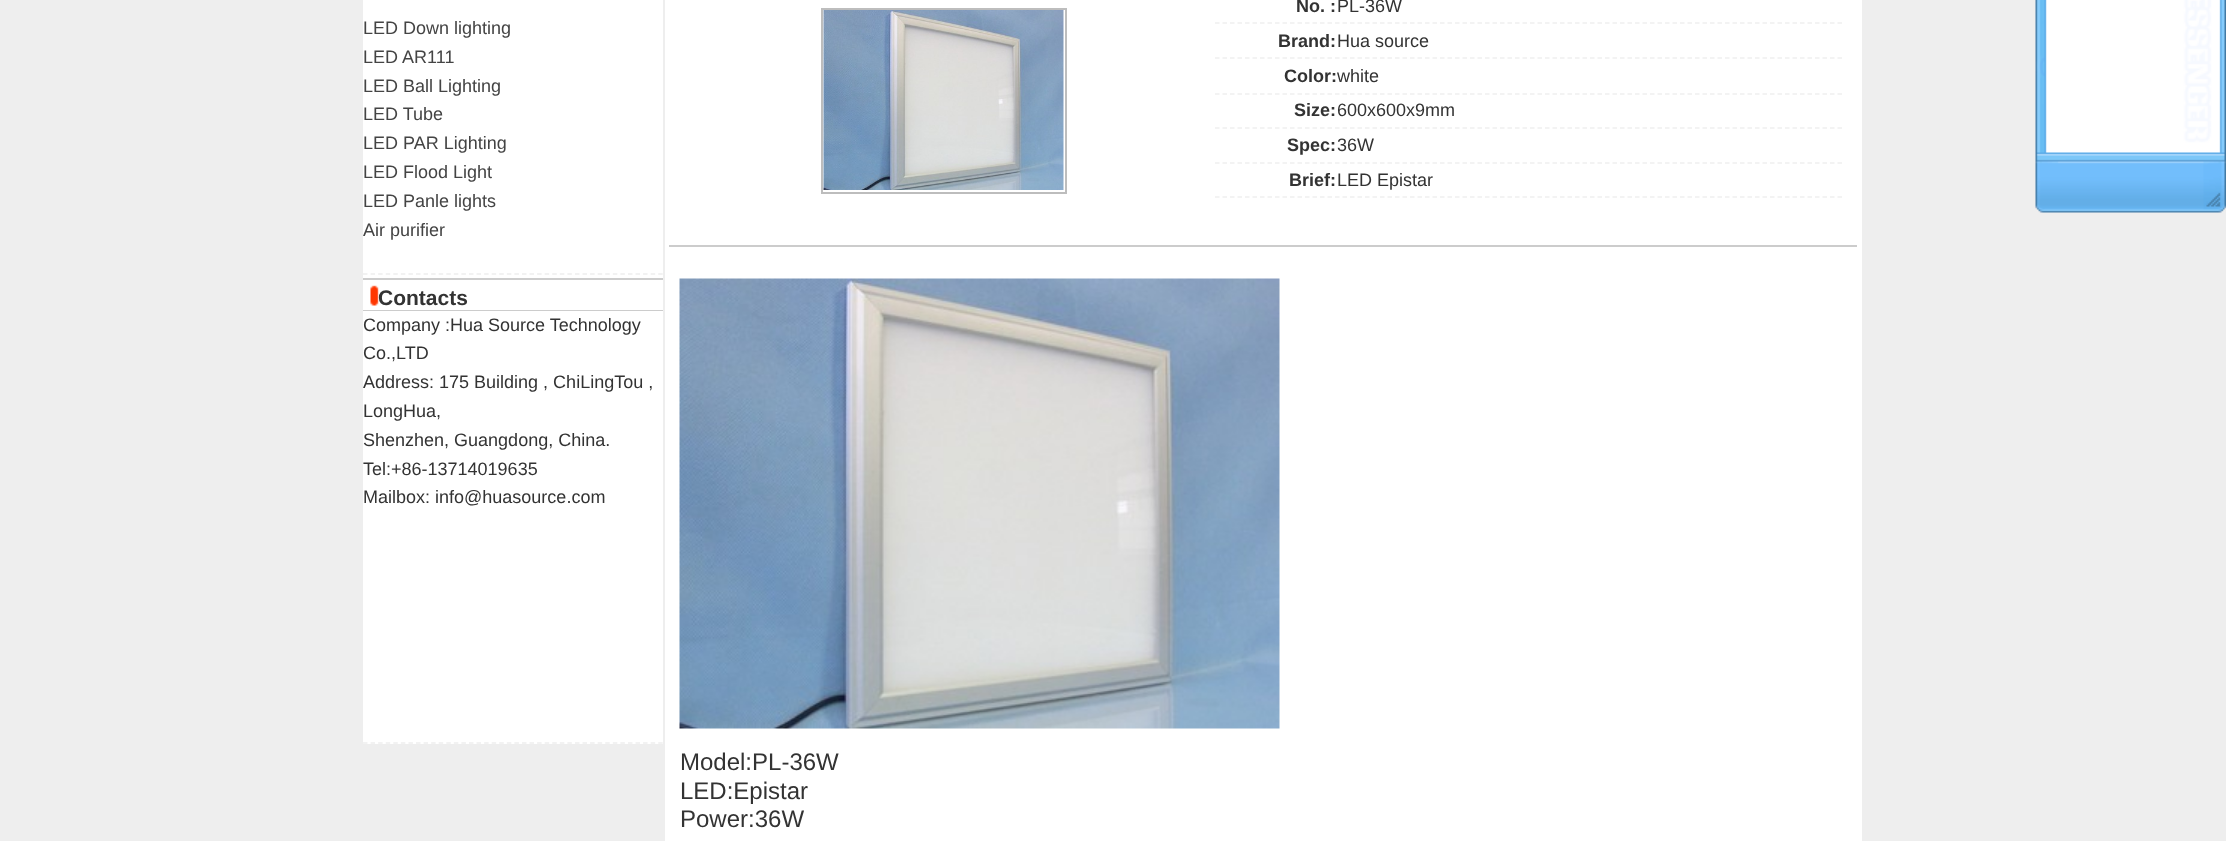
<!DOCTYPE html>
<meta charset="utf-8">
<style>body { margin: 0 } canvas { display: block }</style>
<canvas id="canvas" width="2226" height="841"></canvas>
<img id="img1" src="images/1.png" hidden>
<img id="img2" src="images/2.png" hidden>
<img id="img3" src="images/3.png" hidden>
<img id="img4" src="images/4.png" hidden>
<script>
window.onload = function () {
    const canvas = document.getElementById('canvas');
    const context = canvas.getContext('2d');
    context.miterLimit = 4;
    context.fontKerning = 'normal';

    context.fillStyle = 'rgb(238, 238, 238)';
    context.fillRect(0, 0, 2226, 841);
    context.fillStyle = 'rgb(255, 255, 255)';
    context.fillRect(363, 0, 300, 744);
    context.beginPath();
    context.moveTo(363, 274);
    context.lineTo(663, 274);
    context.strokeStyle = 'rgb(238, 238, 238)';
    context.lineWidth = 1.5;
    context.setLineDash([4.5, 3.07]);
    context.stroke();
    context.fillStyle = 'rgb(204, 204, 204)';
    context.fillRect(363, 310, 300, 1);
    context.drawImage(document.getElementById('img1'), 363, 280, 300, 30);
    context.fillRect(363, 278, 300, 2);
    context.beginPath();
    context.moveTo(363, 743);
    context.lineTo(663, 743);
    context.stroke();
    context.fillStyle = 'rgb(255, 255, 255)';
    context.fillRect(665, 0, 1197, 841);
    context.fillStyle = 'rgb(204, 204, 204)';
    context.fillRect(669, 245, 1188, 2);
    context.strokeStyle = 'rgb(189, 189, 189)';
    context.lineWidth = 2;
    context.setLineDash([]);
    context.strokeRect(822, 9, 244, 184);
    context.drawImage(document.getElementById('img2'), 823, 10, 241, 180);
    context.beginPath();
    context.moveTo(1215, 23);
    context.lineTo(1842, 23);
    context.strokeStyle = 'rgb(240, 240, 240)';
    context.lineWidth = 1.5;
    context.setLineDash([4.5, 3]);
    context.stroke();
    context.beginPath();
    context.moveTo(1215, 58);
    context.lineTo(1842, 58);
    context.stroke();
    context.beginPath();
    context.moveTo(1215, 94);
    context.lineTo(1842, 94);
    context.stroke();
    context.beginPath();
    context.moveTo(1215, 128);
    context.lineTo(1842, 128);
    context.stroke();
    context.beginPath();
    context.moveTo(1215, 163);
    context.lineTo(1842, 163);
    context.stroke();
    context.beginPath();
    context.moveTo(1215, 197);
    context.lineTo(1842, 197);
    context.stroke();
    context.drawImage(document.getElementById('img3'), 679, 278, 601, 451);
    context.drawImage(document.getElementById('img4'), 2035, 0, 191, 213);
    context.font = '18px Liberation Sans';
    context.fillStyle = 'rgb(68, 68, 68)';
    context.fillText('LED Down lighting', 363, 34);
    context.fillText('LED AR111', 363, 63);
    context.fillText('LED Ball Lighting', 363, 92);
    context.fillText('LED Tube', 363, 120);
    context.fillText('LED PAR Lighting', 363, 149);
    context.fillText('LED Flood Light', 363, 178);
    context.fillText('LED Panle lights', 363, 207);
    context.fillText('Air purifier', 363, 236);
    context.font = 'bold 21px Liberation Sans';
    context.fillStyle = 'rgb(51, 51, 51)';
    context.fillText('Contacts', 378, 305);
    context.font = '18px Liberation Sans';
    context.fillText('Company :Hua Source Technology', 363, 331);
    context.fillText('Co.,LTD', 363, 359);
    context.fillText('Address: 175 Building , ChiLingTou ,', 363, 388);
    context.fillText('LongHua,', 363, 417);
    context.fillText('Shenzhen, Guangdong, China.', 363, 446);
    context.fillText('Tel:+86-13714019635', 363, 475);
    context.fillText('Mailbox: info@huasource.com', 363, 503);
    context.font = 'bold 18px Liberation Sans';
    context.fillText('No. :', 1296, 12);
    context.font = '18px Liberation Sans';
    context.fillText('PL-36W', 1337, 12);
    context.font = 'bold 18px Liberation Sans';
    context.fillText('Brand:', 1278, 47);
    context.font = '18px Liberation Sans';
    context.fillText('Hua source', 1337, 47);
    context.font = 'bold 18px Liberation Sans';
    context.fillText('Color:', 1284, 82);
    context.font = '18px Liberation Sans';
    context.fillText('white', 1337, 82);
    context.font = 'bold 18px Liberation Sans';
    context.fillText('Size:', 1294, 116);
    context.font = '18px Liberation Sans';
    context.fillText('600x600x9mm', 1337, 116);
    context.font = 'bold 18px Liberation Sans';
    context.fillText('Spec:', 1287, 151);
    context.font = '18px Liberation Sans';
    context.fillText('36W', 1337, 151);
    context.font = 'bold 18px Liberation Sans';
    context.fillText('Brief:', 1289, 186);
    context.font = '18px Liberation Sans';
    context.fillText('LED Epistar', 1337, 186);
    context.font = '24px Liberation Sans';
    context.fillText('Model:PL-36W', 680, 770);
    context.fillText('LED:Epistar', 680, 799);
    context.fillText('Power:36W', 680, 827);
};
</script>
